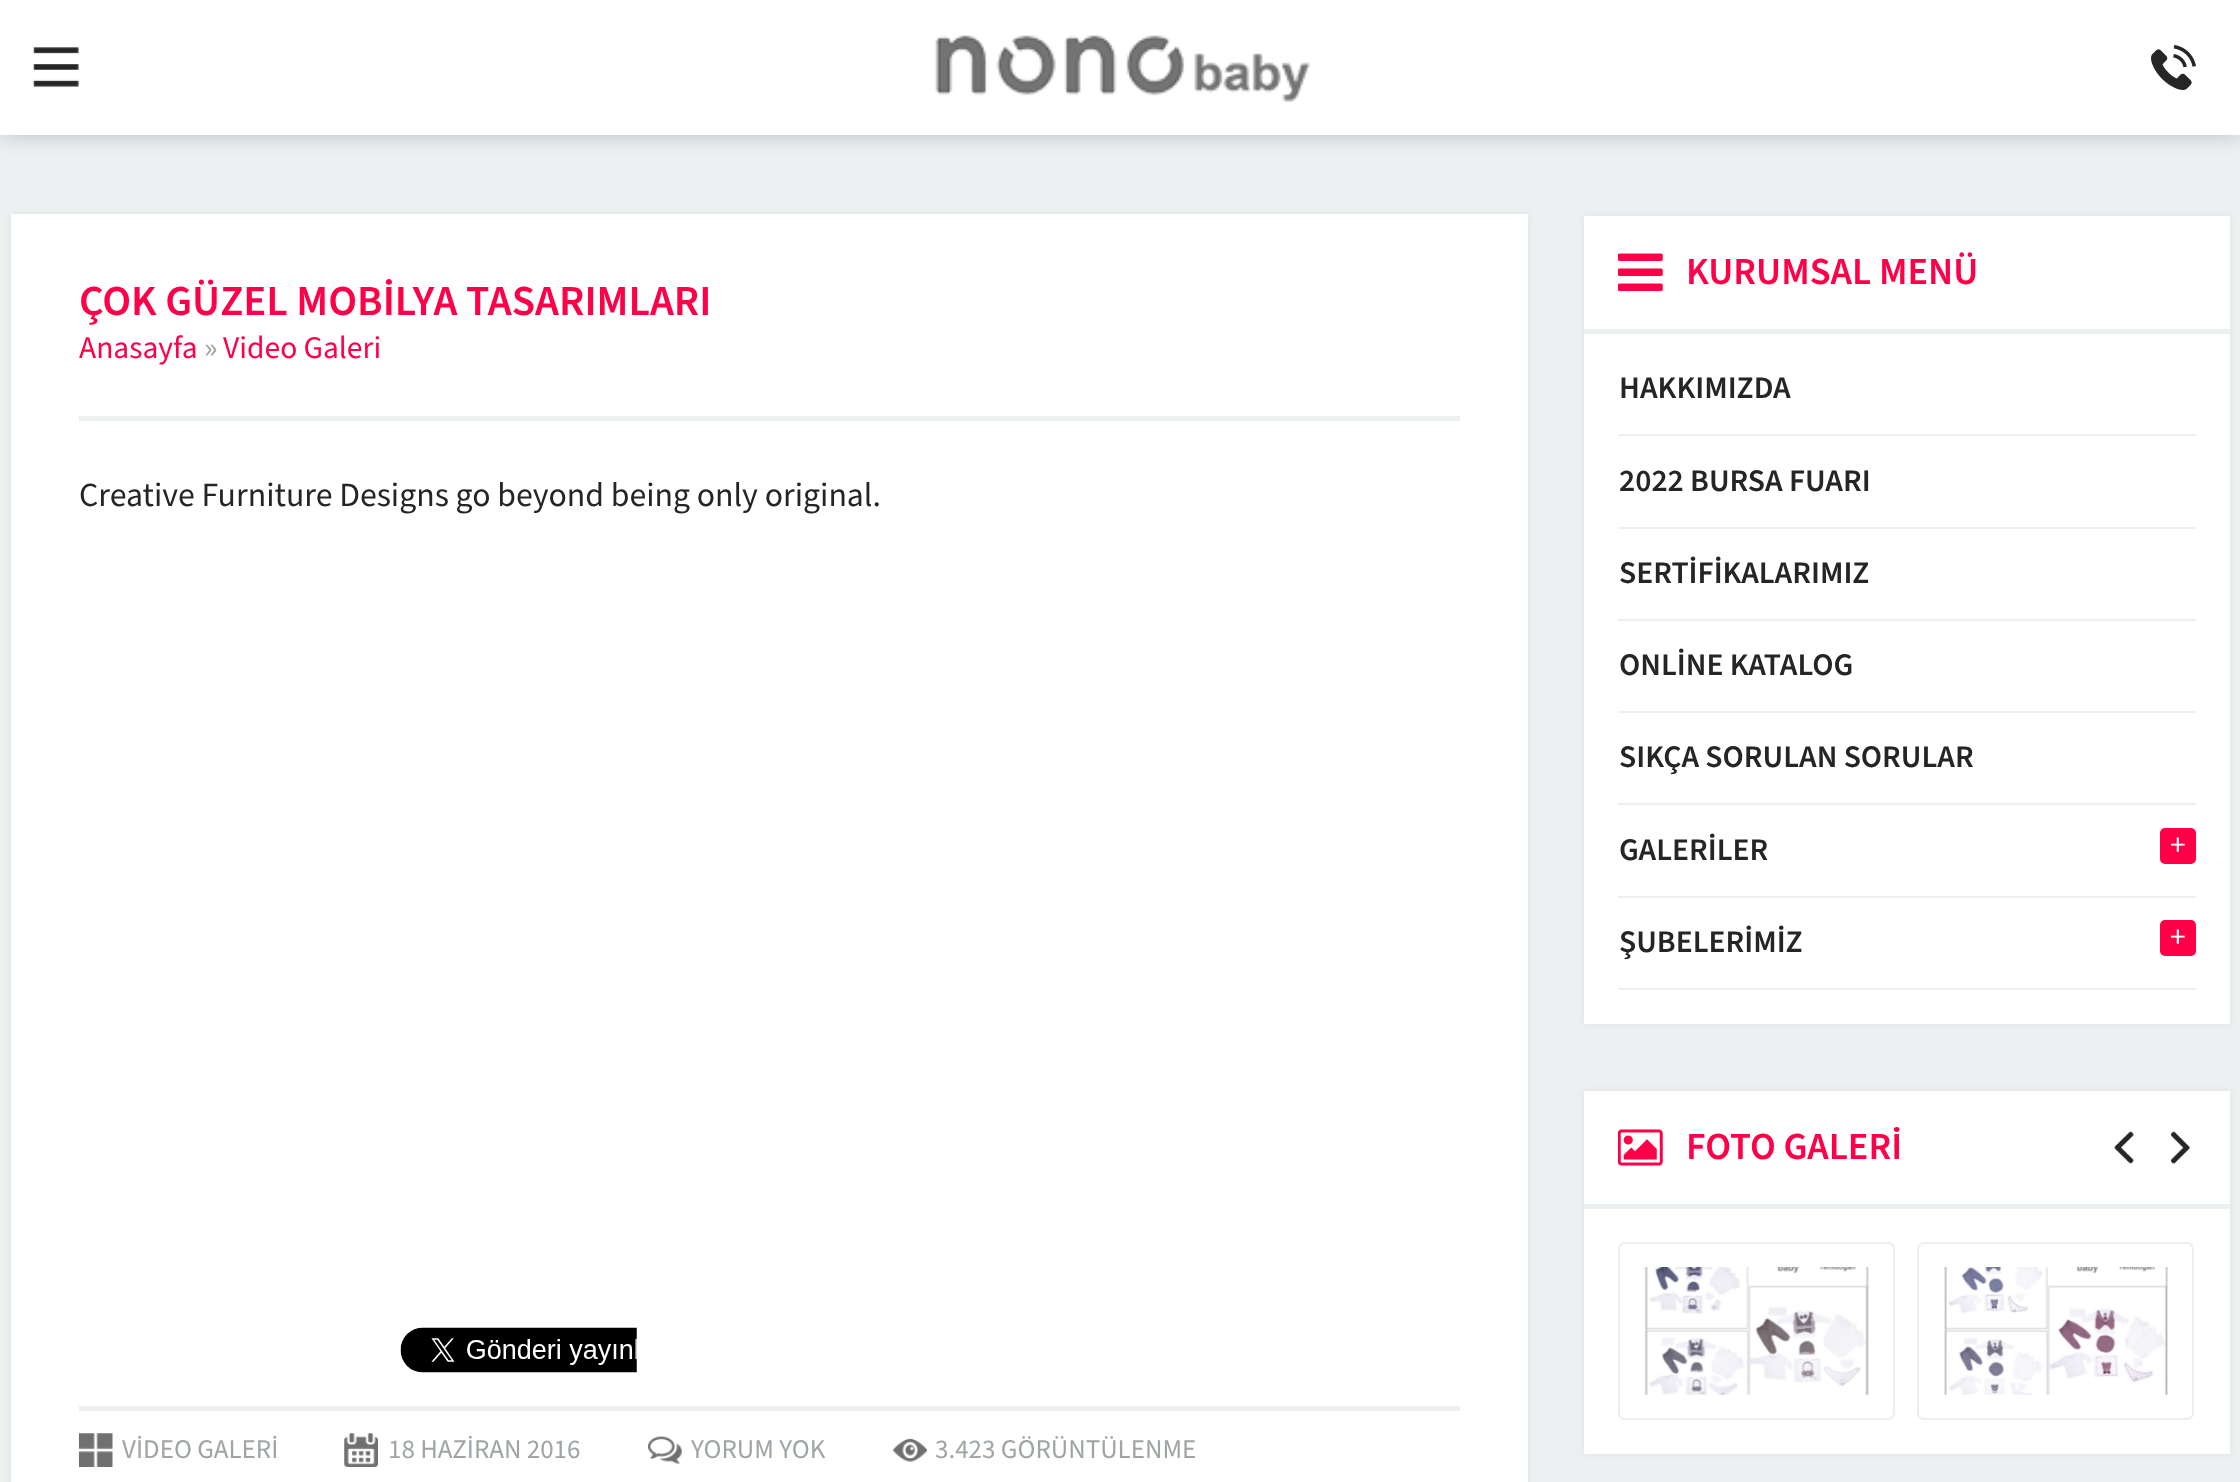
<!DOCTYPE html>
<meta charset="utf-8">
<style>body { margin: 0 } canvas { display: block }</style>
<canvas id="canvas" width="2240" height="1482"></canvas>
<img id="img1" src="images/1.png" hidden>
<img id="img2" src="images/2.png" hidden>
<img id="img3" src="images/3.png" hidden>
<img id="img4" src="images/4.png" hidden>
<img id="img5" src="images/5.png" hidden>
<img id="img6" src="images/6.png" hidden>
<img id="img7" src="images/7.png" hidden>
<img id="img8" src="images/8.png" hidden>
<img id="img9" src="images/9.png" hidden>
<img id="img10" src="images/10.png" hidden>
<img id="img11" src="images/11.png" hidden>
<img id="img12" src="images/12.png" hidden>
<img id="img13" src="images/13.png" hidden>
<img id="img14" src="images/14.png" hidden>
<script>
window.onload = function () {
    const canvas = document.getElementById('canvas');
    const context = canvas.getContext('2d');
    context.miterLimit = 4;
    context.fontKerning = 'normal';

    context.fillStyle = 'rgb(236, 240, 241)';
    context.fillRect(0, 0, 2240, 1482);
    context.fillStyle = 'rgba(0, 0, 0, 0.2)';
    context.filter = 'blur(11px)';
    context.beginPath();
    context.rect(0, 0, 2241, 135);
    context.fill();
    context.filter = 'none';
    context.fillStyle = 'rgb(255, 255, 255)';
    context.fillRect(0, 0, 2240, 135);
    context.drawImage(document.getElementById('img1'), 33, 47, 46, 40);
    context.drawImage(document.getElementById('img2'), 935, 35, 375, 67);
    context.drawImage(document.getElementById('img3'), 2151, 45, 45, 45);
    context.fillStyle = 'rgba(0, 0, 0, 0.06)';
    context.filter = 'blur(3.5px)';
    context.beginPath();
    context.rect(11, 214, 1517, 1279);
    context.fill();
    context.filter = 'none';
    context.fillStyle = 'rgb(255, 255, 255)';
    context.fillRect(11, 214, 1517, 1268);
    context.fillStyle = 'rgb(236, 240, 241)';
    context.fillRect(79, 416, 1381, 5);
    context.drawImage(document.getElementById('img4'), 400, 1327, 237, 46);
    context.fillRect(79, 1406, 1381, 5);
    context.drawImage(document.getElementById('img5'), 78, 1433, 35, 34);
    context.drawImage(document.getElementById('img6'), 344, 1433, 34, 34);
    context.drawImage(document.getElementById('img7'), 648, 1436, 34, 28);
    context.drawImage(document.getElementById('img8'), 893, 1438, 34, 24);
    context.fillStyle = 'rgba(0, 0, 0, 0.06)';
    context.filter = 'blur(3.5px)';
    context.beginPath();
    context.rect(1584, 216, 646, 808);
    context.fill();
    context.filter = 'none';
    context.fillStyle = 'rgb(255, 255, 255)';
    context.fillRect(1584, 216, 646, 808);
    context.fillStyle = 'rgb(236, 240, 241)';
    context.fillRect(1584, 329, 646, 5);
    context.drawImage(document.getElementById('img9'), 1618, 253, 45, 38);
    context.fillRect(1618, 434, 578, 2);
    context.fillRect(1618, 527, 578, 2);
    context.fillRect(1618, 619, 578, 2);
    context.fillRect(1618, 711, 578, 2);
    context.fillRect(1618, 803, 578, 2);
    context.fillRect(1618, 896, 578, 2);
    context.fillStyle = 'rgb(255, 0, 72)';
    context.beginPath();
    context.roundRect(2160, 828, 36, 36, 5);
    context.fill();
    context.fillStyle = 'rgb(236, 240, 241)';
    context.fillRect(1618, 988, 578, 2);
    context.fillStyle = 'rgb(255, 0, 72)';
    context.beginPath();
    context.roundRect(2160, 920, 36, 36, 5);
    context.fill();
    context.fillStyle = 'rgba(0, 0, 0, 0.06)';
    context.filter = 'blur(3.5px)';
    context.beginPath();
    context.rect(1584, 1091, 646, 363);
    context.fill();
    context.filter = 'none';
    context.fillStyle = 'rgb(255, 255, 255)';
    context.fillRect(1584, 1091, 646, 363);
    context.fillStyle = 'rgb(236, 240, 241)';
    context.fillRect(1584, 1204, 646, 5);
    context.drawImage(document.getElementById('img10'), 1618, 1129, 45, 37);
    context.drawImage(document.getElementById('img11'), 2114, 1131, 20, 33);
    context.drawImage(document.getElementById('img12'), 2170, 1131, 20, 33);
    context.beginPath();
    context.roundRect(1619, 1243, 275, 176, 6);
    context.strokeStyle = 'rgb(238, 238, 238)';
    context.lineWidth = 2;
    context.stroke();
    context.drawImage(document.getElementById('img13'), 1644, 1267, 225, 128);
    context.beginPath();
    context.roundRect(1918, 1243, 275, 176, 6);
    context.stroke();
    context.drawImage(document.getElementById('img14'), 1944, 1267, 224, 128);
    context.font = '600 42.75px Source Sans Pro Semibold';
    context.fillStyle = 'rgb(255, 0, 72)';
    context.fillText('ÇOK GÜZEL MOBİLYA TASARIMLARI', 79, 315);
    context.font = '31.5px Source Sans Pro';
    context.fillText('Anasayfa', 79, 358);
    context.fillStyle = 'rgb(159, 164, 164)';
    context.fillText('»', 204, 358);
    context.fillStyle = 'rgb(255, 0, 72)';
    context.fillText('Video Galeri', 223, 358);
    context.font = '33.75px Source Sans Pro';
    context.fillStyle = 'rgb(37, 37, 37)';
    context.fillText('Creative Furniture Designs go beyond being only original.', 79, 506);
    context.font = '27px Source Sans Pro';
    context.fillStyle = 'rgb(159, 164, 164)';
    context.fillText('VİDEO GALERİ', 122, 1458);
    context.fillText('18 HAZİRAN 2016', 388, 1458);
    context.fillText('YORUM YOK', 691, 1458);
    context.fillText('3.423 GÖRÜNTÜLENME', 935, 1458);
    context.font = '600 38.25px Source Sans Pro Semibold';
    context.fillStyle = 'rgb(255, 0, 72)';
    context.fillText('KURUMSAL MENÜ', 1686, 284);
    context.font = '600 31.5px Source Sans Pro Semibold';
    context.fillStyle = 'rgb(37, 37, 37)';
    context.fillText('HAKKIMIZDA', 1619, 398);
    context.fillText('2022 BURSA FUARI', 1619, 491);
    context.fillText('SERTİFİKALARIMIZ', 1619, 583);
    context.fillText('ONLİNE KATALOG', 1619, 675);
    context.fillText('SIKÇA SORULAN SORULAR', 1619, 767);
    context.fillText('GALERİLER', 1619, 860);
    context.font = '31.5px Source Sans Pro';
    context.fillStyle = 'rgb(255, 255, 255)';
    context.fillText('+', 2170, 855);
    context.font = '600 31.5px Source Sans Pro Semibold';
    context.fillStyle = 'rgb(37, 37, 37)';
    context.fillText('ŞUBELERİMİZ', 1619, 952);
    context.font = '31.5px Source Sans Pro';
    context.fillStyle = 'rgb(255, 255, 255)';
    context.fillText('+', 2170, 947);
    context.font = '600 38.25px Source Sans Pro Semibold';
    context.fillStyle = 'rgb(255, 0, 72)';
    context.fillText('FOTO GALERİ', 1686, 1159);
};
</script>
